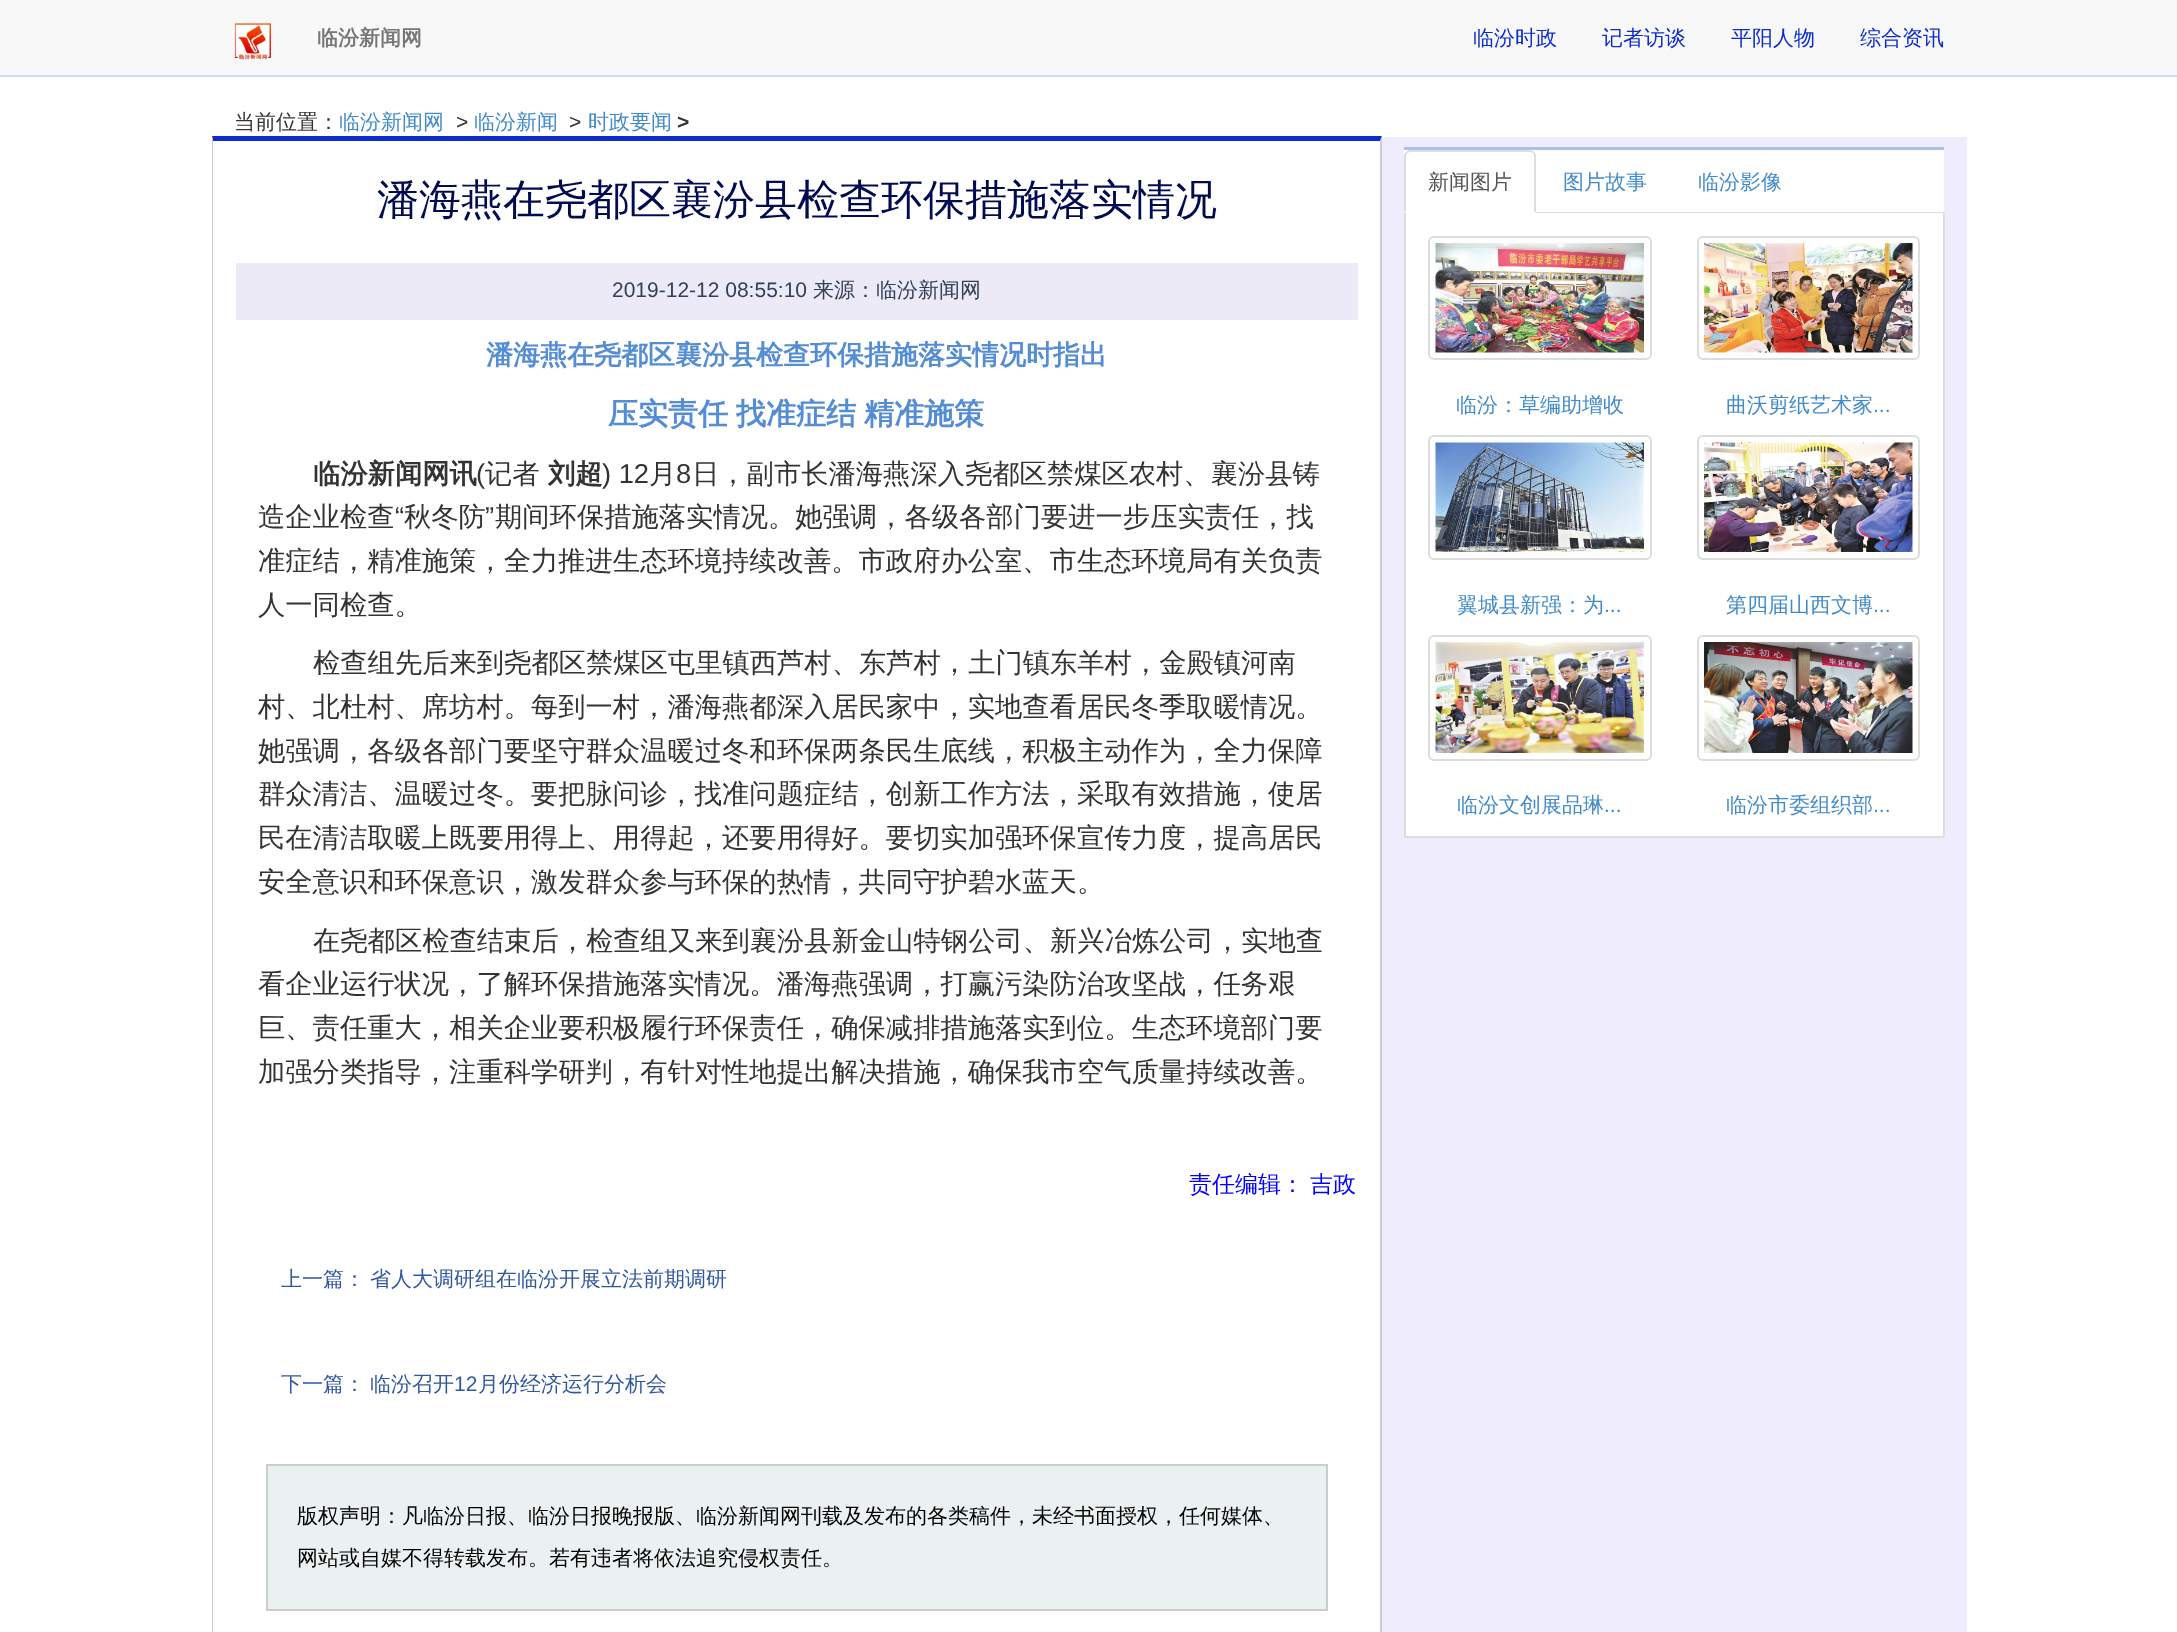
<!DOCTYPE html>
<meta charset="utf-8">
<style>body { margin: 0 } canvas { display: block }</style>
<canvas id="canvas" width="2177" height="1632"></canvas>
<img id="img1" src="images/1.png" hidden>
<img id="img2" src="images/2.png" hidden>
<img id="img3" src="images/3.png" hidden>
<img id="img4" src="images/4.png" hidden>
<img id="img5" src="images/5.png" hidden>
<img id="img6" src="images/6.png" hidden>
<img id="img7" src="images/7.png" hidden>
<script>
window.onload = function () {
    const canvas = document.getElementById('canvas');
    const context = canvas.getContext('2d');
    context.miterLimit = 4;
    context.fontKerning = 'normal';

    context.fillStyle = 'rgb(255, 255, 255)';
    context.fillRect(0, 0, 2177, 1632);
    context.fillStyle = 'rgb(248, 248, 248)';
    context.fillRect(0, 0, 2177, 75);
    context.fillStyle = 'rgb(198, 222, 252)';
    context.fillRect(0, 75, 2177, 2);
    context.drawImage(document.getElementById('img1'), 234, 23, 37, 37);
    context.fillStyle = 'rgb(239, 236, 253)';
    context.fillRect(212, 137, 1755, 1495);
    context.fillStyle = 'rgb(255, 255, 255)';
    context.fillRect(213, 141, 1167, 1491);
    context.fillStyle = 'rgb(12, 44, 205)';
    context.beginPath();
    context.moveTo(212, 136);
    context.lineTo(1382, 136);
    context.lineTo(1380, 141);
    context.lineTo(213, 141);
    context.closePath();
    context.fill();
    context.fillStyle = 'rgb(204, 204, 204)';
    context.beginPath();
    context.moveTo(1382, 136);
    context.lineTo(1382, 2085);
    context.lineTo(1380, 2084);
    context.lineTo(1380, 141);
    context.closePath();
    context.fill();
    context.beginPath();
    context.moveTo(212, 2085);
    context.lineTo(212, 136);
    context.lineTo(213, 141);
    context.lineTo(213, 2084);
    context.closePath();
    context.fill();
    context.fillStyle = 'rgb(237, 234, 248)';
    context.fillRect(236, 263, 1122, 57);
    context.fillStyle = 'rgb(235, 241, 241)';
    context.beginPath();
    context.rect(267, 1465, 1060, 145);
    context.fill();
    context.strokeStyle = 'rgb(204, 204, 204)';
    context.lineWidth = 2;
    context.stroke();
    context.fillStyle = 'rgb(255, 255, 255)';
    context.fillRect(1404, 150, 540, 62);
    context.fillStyle = 'rgb(170, 194, 232)';
    context.fillRect(1404, 147, 540, 3);
    context.fillStyle = 'rgb(221, 221, 221)';
    context.fillRect(1536, 212, 408, 1);
    context.fillStyle = 'rgb(255, 255, 255)';
    context.beginPath();
    context.roundRect(1404, 150, 132, 63, [6, 6, 0, 0]);
    context.fill();
    context.fillStyle = 'rgb(221, 221, 221)';
    context.beginPath();
    context.moveTo(1410, 150);
    context.bezierCurveTo(1408, 150, 1407, 151, 1406, 152);
    context.lineTo(1407, 153);
    context.lineTo(1410, 152);
    context.lineTo(1530, 152);
    context.lineTo(1533, 153);
    context.lineTo(1534, 152);
    context.bezierCurveTo(1533, 151, 1532, 150, 1530, 150);
    context.closePath();
    context.fill();
    context.beginPath();
    context.moveTo(1536, 213);
    context.lineTo(1536, 156);
    context.bezierCurveTo(1536, 154, 1535, 153, 1534, 152);
    context.lineTo(1533, 153);
    context.lineTo(1534, 156);
    context.lineTo(1534, 211);
    context.closePath();
    context.fill();
    context.beginPath();
    context.moveTo(1404, 213);
    context.lineTo(1406, 211);
    context.lineTo(1406, 156);
    context.lineTo(1407, 153);
    context.lineTo(1406, 152);
    context.bezierCurveTo(1405, 153, 1404, 154, 1404, 156);
    context.closePath();
    context.fill();
    context.fillStyle = 'rgb(255, 255, 255)';
    context.fillRect(1406, 213, 537, 623);
    context.fillStyle = 'rgb(221, 221, 221)';
    context.fillRect(1943, 213, 2, 624);
    context.fillRect(1404, 836, 540, 2);
    context.fillRect(1404, 213, 2, 624);
    context.beginPath();
    context.roundRect(1429, 237, 222, 122, 5);
    context.strokeStyle = 'rgb(221, 221, 221)';
    context.stroke();
    context.drawImage(document.getElementById('img2'), 1435, 243, 209, 110);
    context.beginPath();
    context.roundRect(1698, 237, 221, 122, 5);
    context.stroke();
    context.drawImage(document.getElementById('img3'), 1704, 243, 209, 110);
    context.beginPath();
    context.roundRect(1429, 436, 222, 123, 5);
    context.stroke();
    context.drawImage(document.getElementById('img4'), 1435, 442, 209, 110);
    context.beginPath();
    context.roundRect(1698, 436, 221, 123, 5);
    context.stroke();
    context.drawImage(document.getElementById('img5'), 1704, 442, 209, 110);
    context.beginPath();
    context.roundRect(1429, 636, 222, 124, 5);
    context.stroke();
    context.drawImage(document.getElementById('img6'), 1435, 642, 209, 111);
    context.beginPath();
    context.roundRect(1698, 636, 221, 124, 5);
    context.stroke();
    context.drawImage(document.getElementById('img7'), 1704, 642, 209, 111);
    context.font = 'bold 21px WenQuanYi Zen Hei';
    context.fillStyle = 'rgb(119, 119, 119)';
    context.fillText('临汾新闻网', 317, 45);
    context.font = '500 21px WenQuanYi Zen Hei';
    context.fillStyle = 'rgb(12, 44, 205)';
    context.fillText('临汾时政', 1473, 45);
    context.fillText('记者访谈', 1602, 45);
    context.fillText('平阳人物', 1731, 45);
    context.fillText('综合资讯', 1860, 45);
    context.fillStyle = 'rgb(51, 51, 51)';
    context.fillText('当前位置：', 234, 129);
    context.fillStyle = 'rgb(66, 139, 202)';
    context.fillText('临汾新闻网', 339, 129);
    context.font = '21px Liberation Sans';
    context.fillStyle = 'rgb(51, 51, 51)';
    context.fillText('>', 456, 129);
    context.font = '500 21px WenQuanYi Zen Hei';
    context.fillStyle = 'rgb(66, 139, 202)';
    context.fillText('临汾新闻', 474, 129);
    context.font = '21px Liberation Sans';
    context.fillStyle = 'rgb(51, 51, 51)';
    context.fillText('>', 569, 129);
    context.font = '500 21px WenQuanYi Zen Hei';
    context.fillStyle = 'rgb(66, 139, 202)';
    context.fillText('时政要闻', 588, 129);
    context.font = 'bold 21px Liberation Sans';
    context.fillStyle = 'rgb(51, 51, 51)';
    context.fillText('>', 677, 129);
    context.font = '500 42px WenQuanYi Zen Hei';
    context.fillStyle = 'rgb(0, 11, 81)';
    context.fillText('潘海燕在尧都区襄汾县检查环保措施落实情况', 377, 214);
    context.font = '21px Liberation Sans';
    context.fillStyle = 'rgb(51, 64, 88)';
    context.fillText('2019-12-12 08:55:10', 612, 297);
    context.font = '500 21px WenQuanYi Zen Hei';
    context.fillText('来源：临汾新闻网', 813, 297);
    context.font = 'bold 27px WenQuanYi Zen Hei';
    context.fillStyle = 'rgb(84, 141, 212)';
    context.fillText('潘海燕在尧都区襄汾县检查环保措施落实情况时指出', 486, 364);
    context.wordSpacing = '-1px';
    context.font = 'bold 30px WenQuanYi Zen Hei';
    context.fillText('压实责任 找准症结 精准施策', 608, 424);
    context.wordSpacing = '0px';
    context.font = 'bold 27.3px WenQuanYi Zen Hei';
    context.fillStyle = 'rgb(51, 51, 51)';
    context.fillText('临汾新闻网讯', 313, 483);
    context.font = '27.3px Liberation Sans';
    context.fillText('(', 476, 483);
    context.font = '500 27.3px WenQuanYi Zen Hei';
    context.fillText('记者', 485, 483);
    context.font = 'bold 27.3px WenQuanYi Zen Hei';
    context.fillText('刘超', 548, 483);
    context.font = '27.3px Liberation Sans';
    context.fillText(') 12', 602, 483);
    context.font = '500 27.3px WenQuanYi Zen Hei';
    context.fillText('月', 649, 483);
    context.font = '27.3px Liberation Sans';
    context.fillText('8', 676, 483);
    context.font = '500 27.3px WenQuanYi Zen Hei';
    context.fillText('日，副市长潘海燕深入尧都区禁煤区农村、襄汾县铸', 692, 483);
    context.fillText('造企业检查', 258, 526);
    context.font = '27.3px Liberation Sans';
    context.fillText('“', 395, 526);
    context.font = '500 27.3px WenQuanYi Zen Hei';
    context.fillText('秋冬防', 404, 526);
    context.font = '27.3px Liberation Sans';
    context.fillText('”', 485, 526);
    context.font = '500 27.3px WenQuanYi Zen Hei';
    context.fillText('期间环保措施落实情况。她强调，各级各部门要进一步压实责任，找', 495, 526);
    context.fillText('准症结，精准施策，全力推进生态环境持续改善。市政府办公室、市生态环境局有关负责', 258, 570);
    context.fillText('人一同检查。', 258, 614);
    context.fillText('检查组先后来到尧都区禁煤区屯里镇西芦村、东芦村，土门镇东羊村，金殿镇河南', 313, 672);
    context.fillText('村、北杜村、席坊村。每到一村，潘海燕都深入居民家中，实地查看居民冬季取暖情况。', 258, 716);
    context.fillText('她强调，各级各部门要坚守群众温暖过冬和环保两条民生底线，积极主动作为，全力保障', 258, 760);
    context.fillText('群众清洁、温暖过冬。要把脉问诊，找准问题症结，创新工作方法，采取有效措施，使居', 258, 803);
    context.fillText('民在清洁取暖上既要用得上、用得起，还要用得好。要切实加强环保宣传力度，提高居民', 258, 847);
    context.fillText('安全意识和环保意识，激发群众参与环保的热情，共同守护碧水蓝天。', 258, 891);
    context.fillText('在尧都区检查结束后，检查组又来到襄汾县新金山特钢公司、新兴冶炼公司，实地查', 313, 950);
    context.fillText('看企业运行状况，了解环保措施落实情况。潘海燕强调，打赢污染防治攻坚战，任务艰', 258, 993);
    context.fillText('巨、责任重大，相关企业要积极履行环保责任，确保减排措施落实到位。生态环境部门要', 258, 1037);
    context.fillText('加强分类指导，注重科学研判，有针对性地提出解决措施，确保我市空气质量持续改善。', 258, 1081);
    context.wordSpacing = '-1px';
    context.font = '500 23px WenQuanYi Zen Hei';
    context.fillStyle = 'rgb(0, 0, 255)';
    context.fillText('责任编辑： 吉政', 1189, 1192);
    context.wordSpacing = '0px';
    context.font = '500 21px WenQuanYi Zen Hei';
    context.fillStyle = 'rgb(49, 88, 159)';
    context.fillText('上一篇：', 281, 1286);
    context.fillText('省人大调研组在临汾开展立法前期调研', 370, 1286);
    context.fillText('下一篇：', 281, 1391);
    context.fillText('临汾召开', 370, 1391);
    context.font = '21px Liberation Sans';
    context.fillText('12', 454, 1391);
    context.font = '500 21px WenQuanYi Zen Hei';
    context.fillText('月份经济运行分析会', 478, 1391);
    context.fillStyle = 'rgb(0, 0, 0)';
    context.fillText('版权声明：凡临汾日报、临汾日报晚报版、临汾新闻网刊载及发布的各类稿件，未经书面授权，任何媒体、', 297, 1523);
    context.fillText('网站或自媒不得转载发布。若有违者将依法追究侵权责任。', 297, 1565);
    context.fillStyle = 'rgb(85, 85, 85)';
    context.fillText('新闻图片', 1428, 189);
    context.fillStyle = 'rgb(66, 139, 202)';
    context.fillText('图片故事', 1563, 189);
    context.fillText('临汾影像', 1698, 189);
    context.fillText('临汾：草编助增收', 1456, 412);
    context.fillText('曲沃剪纸艺术家', 1726, 412);
    context.font = '21px Liberation Sans';
    context.fillText('...', 1873, 412);
    context.font = '500 21px WenQuanYi Zen Hei';
    context.fillText('翼城县新强：为', 1457, 612);
    context.font = '21px Liberation Sans';
    context.fillText('...', 1604, 612);
    context.font = '500 21px WenQuanYi Zen Hei';
    context.fillText('第四届山西文博', 1726, 612);
    context.font = '21px Liberation Sans';
    context.fillText('...', 1873, 612);
    context.font = '500 21px WenQuanYi Zen Hei';
    context.fillText('临汾文创展品琳', 1457, 812);
    context.font = '21px Liberation Sans';
    context.fillText('...', 1604, 812);
    context.font = '500 21px WenQuanYi Zen Hei';
    context.fillText('临汾市委组织部', 1726, 812);
    context.font = '21px Liberation Sans';
    context.fillText('...', 1873, 812);
};
</script>
